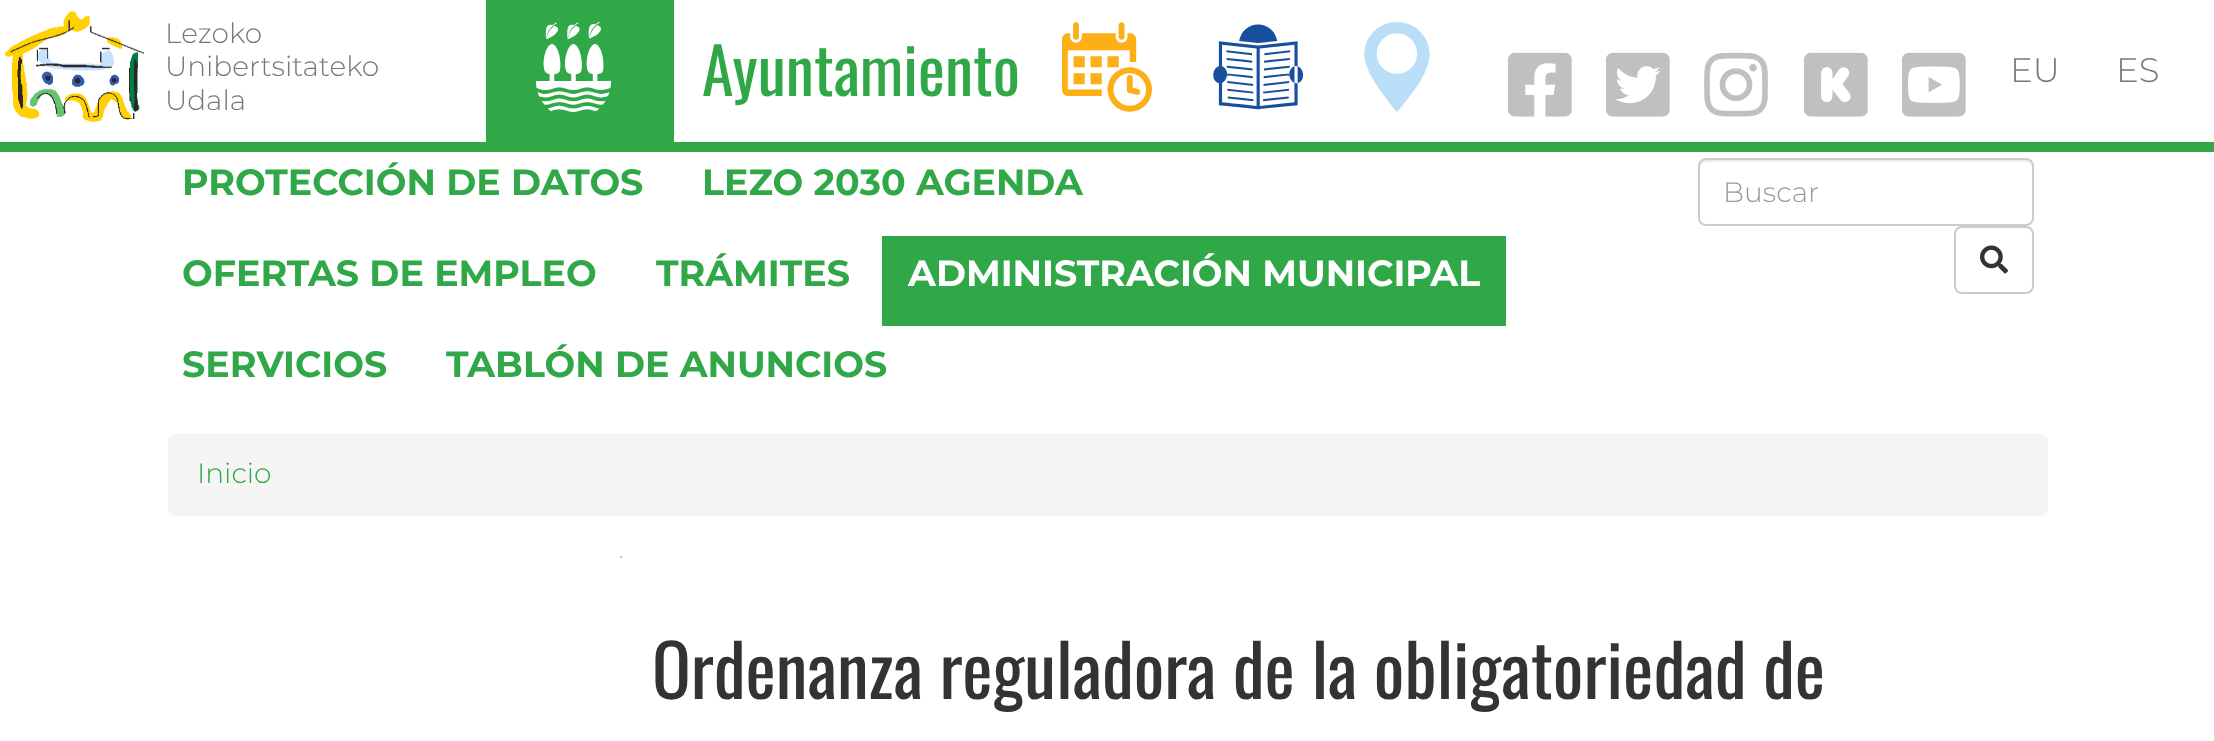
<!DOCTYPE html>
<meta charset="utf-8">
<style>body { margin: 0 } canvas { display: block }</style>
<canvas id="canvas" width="2214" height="741"></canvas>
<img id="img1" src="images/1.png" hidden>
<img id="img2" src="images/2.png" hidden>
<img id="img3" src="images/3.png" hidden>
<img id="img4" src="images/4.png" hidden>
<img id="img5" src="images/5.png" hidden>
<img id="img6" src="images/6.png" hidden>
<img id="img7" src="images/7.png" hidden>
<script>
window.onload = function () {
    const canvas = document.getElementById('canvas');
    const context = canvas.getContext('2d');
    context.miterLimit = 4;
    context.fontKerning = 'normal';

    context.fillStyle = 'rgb(255, 255, 255)';
    context.fillRect(0, 0, 2214, 741);
    context.fillStyle = 'rgb(48, 168, 71)';
    context.fillRect(0, 142, 2214, 10);
    context.drawImage(document.getElementById('img1'), 5, 11, 139, 111);
    context.fillRect(486, 0, 188, 142);
    context.drawImage(document.getElementById('img2'), 1508, 52, 64, 65);
    context.drawImage(document.getElementById('img3'), 1606, 52, 64, 65);
    context.drawImage(document.getElementById('img4'), 1704, 52, 64, 65);
    context.drawImage(document.getElementById('img5'), 1804, 52, 64, 65);
    context.drawImage(document.getElementById('img6'), 1902, 52, 64, 65);
    context.fillRect(882, 236, 624, 90);
    context.fillStyle = 'rgb(236, 236, 236)';
    context.beginPath();
    context.moveTo(1706, 162);
    context.lineTo(2026, 162);
    context.bezierCurveTo(2029, 162, 2032, 165, 2032, 168);
    context.lineTo(2032, 166);
    context.bezierCurveTo(2032, 163, 2029, 160, 2026, 160);
    context.lineTo(1706, 160);
    context.bezierCurveTo(1703, 160, 1700, 163, 1700, 166);
    context.lineTo(1700, 168);
    context.bezierCurveTo(1700, 165, 1703, 162, 1706, 162);
    context.closePath();
    context.fill();
    context.beginPath();
    context.roundRect(1699, 159, 334, 66, 7);
    context.strokeStyle = 'rgb(204, 204, 204)';
    context.lineWidth = 2;
    context.stroke();
    context.beginPath();
    context.roundRect(1955, 227, 78, 66, 7);
    context.stroke();
    context.drawImage(document.getElementById('img7'), 1980, 245, 28, 29);
    context.fillStyle = 'rgb(245, 245, 245)';
    context.beginPath();
    context.roundRect(168, 434, 1880, 82, 8);
    context.fill();
    context.fillStyle = 'rgb(192, 192, 192)';
    context.fillRect(620, 556, 2, 2);
    context.font = '300 28px Montserrat';
    context.fillStyle = 'rgb(119, 119, 119)';
    context.fillText('Lezoko', 165, 43);
    context.fillText('Unibertsitateko', 165, 76);
    context.fillText('Udala', 165, 110);
    context.font = '90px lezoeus';
    context.fillStyle = 'rgb(255, 255, 255)';
    context.fillText('I', 536, 112);
    context.font = '64px Oswald';
    context.fillStyle = 'rgb(48, 168, 71)';
    context.fillText('Ayuntamiento', 702, 96);
    context.font = '90px lezoeus';
    context.fillStyle = 'rgb(252, 175, 23)';
    context.fillText('D', 1062, 112);
    context.fillStyle = 'rgb(23, 79, 158)';
    context.fillText('T', 1213, 112);
    context.fillStyle = 'rgb(186, 222, 247)';
    context.fillText('O', 1364, 112);
    context.font = '300 34px Montserrat';
    context.fillStyle = 'rgb(119, 119, 119)';
    context.fillText('EU', 2010, 82);
    context.fillText('ES', 2116, 82);
    context.font = 'bold 36.4px Montserrat';
    context.fillStyle = 'rgb(48, 168, 71)';
    context.fillText('PROTECCIÓN DE DATOS', 182, 195);
    context.fillText('LEZO 2030 AGENDA', 702, 195);
    context.fillText('OFERTAS DE EMPLEO', 182, 286);
    context.fillText('TRÁMITES', 656, 286);
    context.fillStyle = 'rgb(255, 255, 255)';
    context.fillText('ADMINISTRACIÓN MUNICIPAL', 908, 286);
    context.fillStyle = 'rgb(48, 168, 71)';
    context.fillText('SERVICIOS', 182, 377);
    context.fillText('TABLÓN DE ANUNCIOS', 446, 377);
    context.font = '300 28px Montserrat';
    context.fillStyle = 'rgb(153, 153, 153)';
    context.fillText('Buscar', 1723, 202);
    context.fillStyle = 'rgb(48, 168, 71)';
    context.fillText('Inicio', 197, 483);
    context.font = '72px Oswald';
    context.fillStyle = 'rgb(51, 51, 51)';
    context.fillText('Ordenanza reguladora de la obligatoriedad de', 652, 699);
};
</script>
